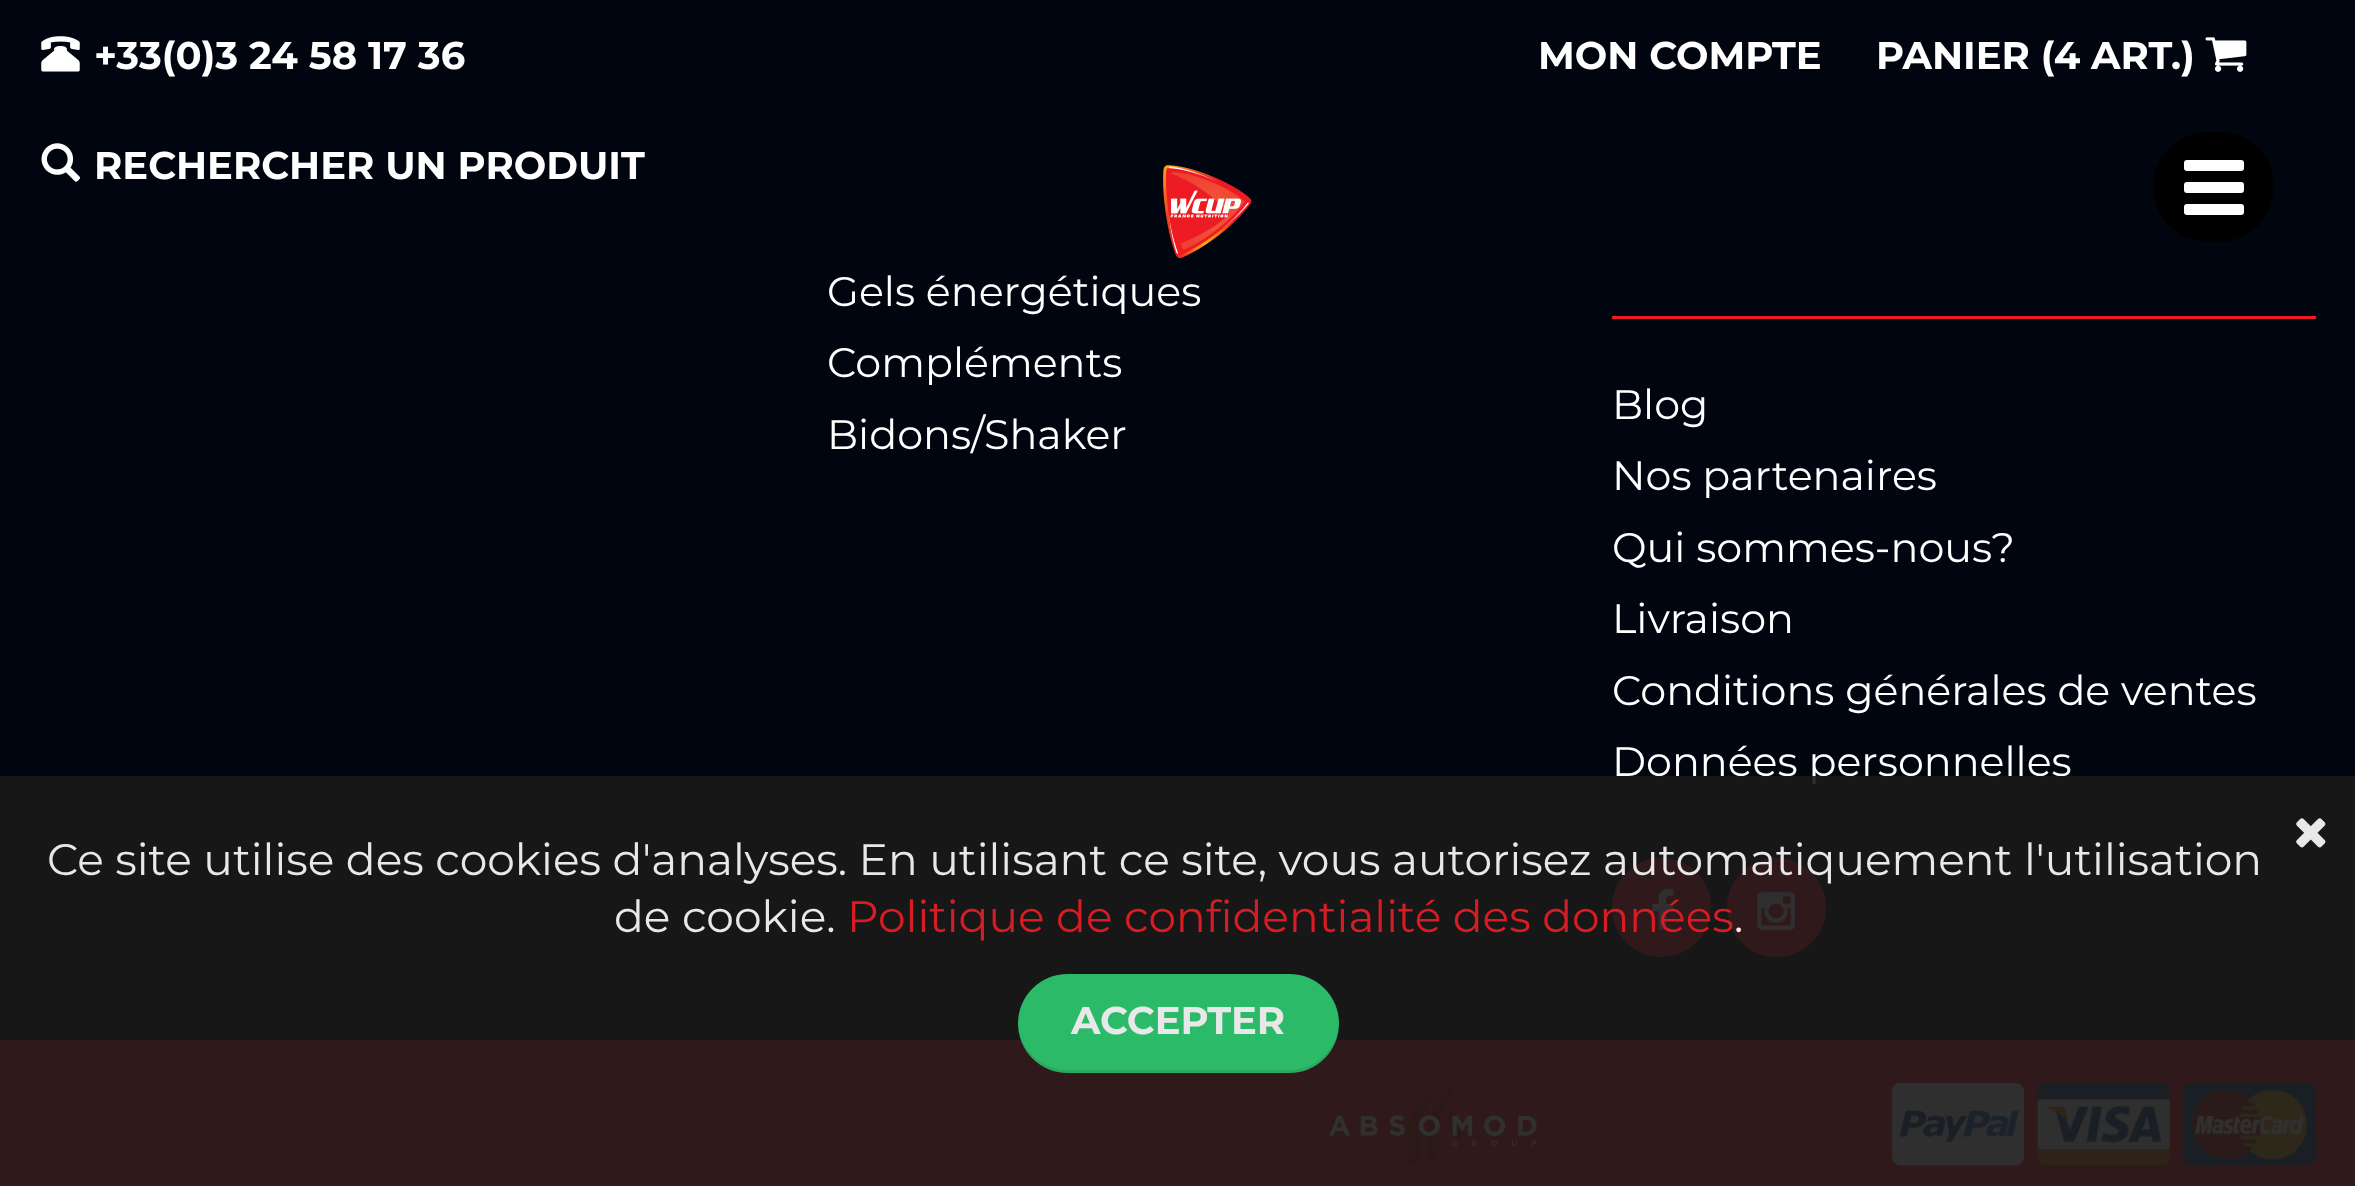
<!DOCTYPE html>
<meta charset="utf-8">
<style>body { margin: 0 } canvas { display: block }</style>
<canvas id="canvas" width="2355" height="1186"></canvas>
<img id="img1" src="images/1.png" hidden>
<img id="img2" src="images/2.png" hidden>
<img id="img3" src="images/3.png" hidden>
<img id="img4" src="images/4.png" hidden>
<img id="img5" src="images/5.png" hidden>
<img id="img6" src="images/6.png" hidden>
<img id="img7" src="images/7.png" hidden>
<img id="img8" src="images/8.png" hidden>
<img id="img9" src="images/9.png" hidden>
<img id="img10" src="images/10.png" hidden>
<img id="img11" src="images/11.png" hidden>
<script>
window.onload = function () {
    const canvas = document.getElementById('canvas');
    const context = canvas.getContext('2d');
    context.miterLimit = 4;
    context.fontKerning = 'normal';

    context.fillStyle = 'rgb(1, 5, 16)';
    context.fillRect(0, 0, 2355, 1186);
    context.drawImage(document.getElementById('img1'), 41, 36, 39, 36);
    context.drawImage(document.getElementById('img2'), 41, 143, 39, 39);
    context.drawImage(document.getElementById('img3'), 2205, 37, 42, 35);
    context.drawImage(document.getElementById('img4'), 1163, 165, 89, 94);
    context.fillStyle = 'rgb(0, 0, 0)';
    context.beginPath();
    context.roundRect(2153, 132, 121, 110, 55);
    context.fill();
    context.fillStyle = 'rgb(255, 255, 255)';
    context.beginPath();
    context.roundRect(2184, 160, 60, 11, 3);
    context.fill();
    context.beginPath();
    context.roundRect(2184, 182, 60, 11, 3);
    context.fill();
    context.beginPath();
    context.roundRect(2184, 204, 60, 11, 3);
    context.fill();
    context.fillStyle = 'rgb(237, 28, 36)';
    context.fillRect(0, 1040, 2355, 146);
    context.fillRect(1612, 316, 704, 3);
    context.beginPath();
    context.arc(1661.5, 907.5, 46.5, 0, 2 * Math.PI);
    context.fill();
    context.strokeStyle = 'rgb(237, 28, 36)';
    context.lineWidth = 6;
    context.stroke();
    context.drawImage(document.getElementById('img5'), 1652, 889, 22, 41);
    context.beginPath();
    context.arc(1776.5, 907.5, 46.5, 0, 2 * Math.PI);
    context.fill();
    context.stroke();
    context.drawImage(document.getElementById('img6'), 1757, 892, 38, 38);
    context.drawImage(document.getElementById('img7'), 1329, 1088, 208, 79);
    context.drawImage(document.getElementById('img8'), 1892, 1083, 132, 83);
    context.drawImage(document.getElementById('img9'), 2037, 1083, 133, 83);
    context.drawImage(document.getElementById('img10'), 2183, 1083, 133, 83);
    context.font = 'bold 38.5px Montserrat';
    context.fillStyle = 'rgb(255, 255, 255)';
    context.fillText('+33(0)3 24 58 17 36', 94, 69);
    context.fillText('RECHERCHER UN PRODUIT', 94, 179);
    context.fillText('MON COMPTE', 1538, 69);
    context.fillText('PANIER (4 ART.)', 1876, 69);
    context.font = '41.25px Montserrat';
    context.fillText('Gels énergétiques', 827, 306);
    context.fillText('Compléments', 827, 377);
    context.fillText('Bidons/Shaker', 827, 449);
    context.fillText('Blog', 1612, 419);
    context.fillText('Nos partenaires', 1612, 490);
    context.fillText('Qui sommes-nous?', 1612, 562);
    context.fillText('Livraison', 1612, 633);
    context.fillText('Conditions générales de ventes', 1612, 705);
    context.fillText('Données personnelles', 1612, 776);
    context.fillStyle = 'rgba(26, 26, 26, 0.9)';
    context.fillRect(0, 776, 2355, 410);
    context.drawImage(document.getElementById('img11'), 2296, 818, 30, 30);
    context.font = '44px Montserrat';
    context.fillStyle = 'rgb(232, 232, 232)';
    context.fillText('Ce site utilise des cookies d\'analyses. En utilisant ce site, vous autorisez automatiquement l\'utilisation', 47, 875);
    context.fillText('de cookie.', 614, 932);
    context.fillStyle = 'rgb(216, 28, 35)';
    context.fillText('Politique de confidentialité des données', 847, 932);
    context.fillStyle = 'rgb(253, 232, 233)';
    context.fillText('.', 1734, 932);
    context.fillStyle = 'rgba(46, 204, 113, 0.9)';
    context.beginPath();
    context.roundRect(1018, 974, 321, 99, 49.5);
    context.fill();
    context.fillStyle = 'rgba(0, 0, 0, 0.09)';
    context.beginPath();
    context.moveTo(1018, 1022);
    context.lineTo(1018, 1024);
    context.bezierCurveTo(1018, 1051, 1040, 1073, 1068, 1073);
    context.lineTo(1290, 1073);
    context.bezierCurveTo(1317, 1073, 1339, 1051, 1339, 1024);
    context.lineTo(1339, 1022);
    context.bezierCurveTo(1338, 1049, 1316, 1070, 1290, 1070);
    context.lineTo(1067, 1070);
    context.bezierCurveTo(1041, 1070, 1019, 1049, 1018, 1022);
    context.closePath();
    context.fill();
    context.font = 'bold 38.5px Montserrat';
    context.fillStyle = 'rgb(232, 232, 232)';
    context.fillText('ACCEPTER', 1071, 1034);
};
</script>
